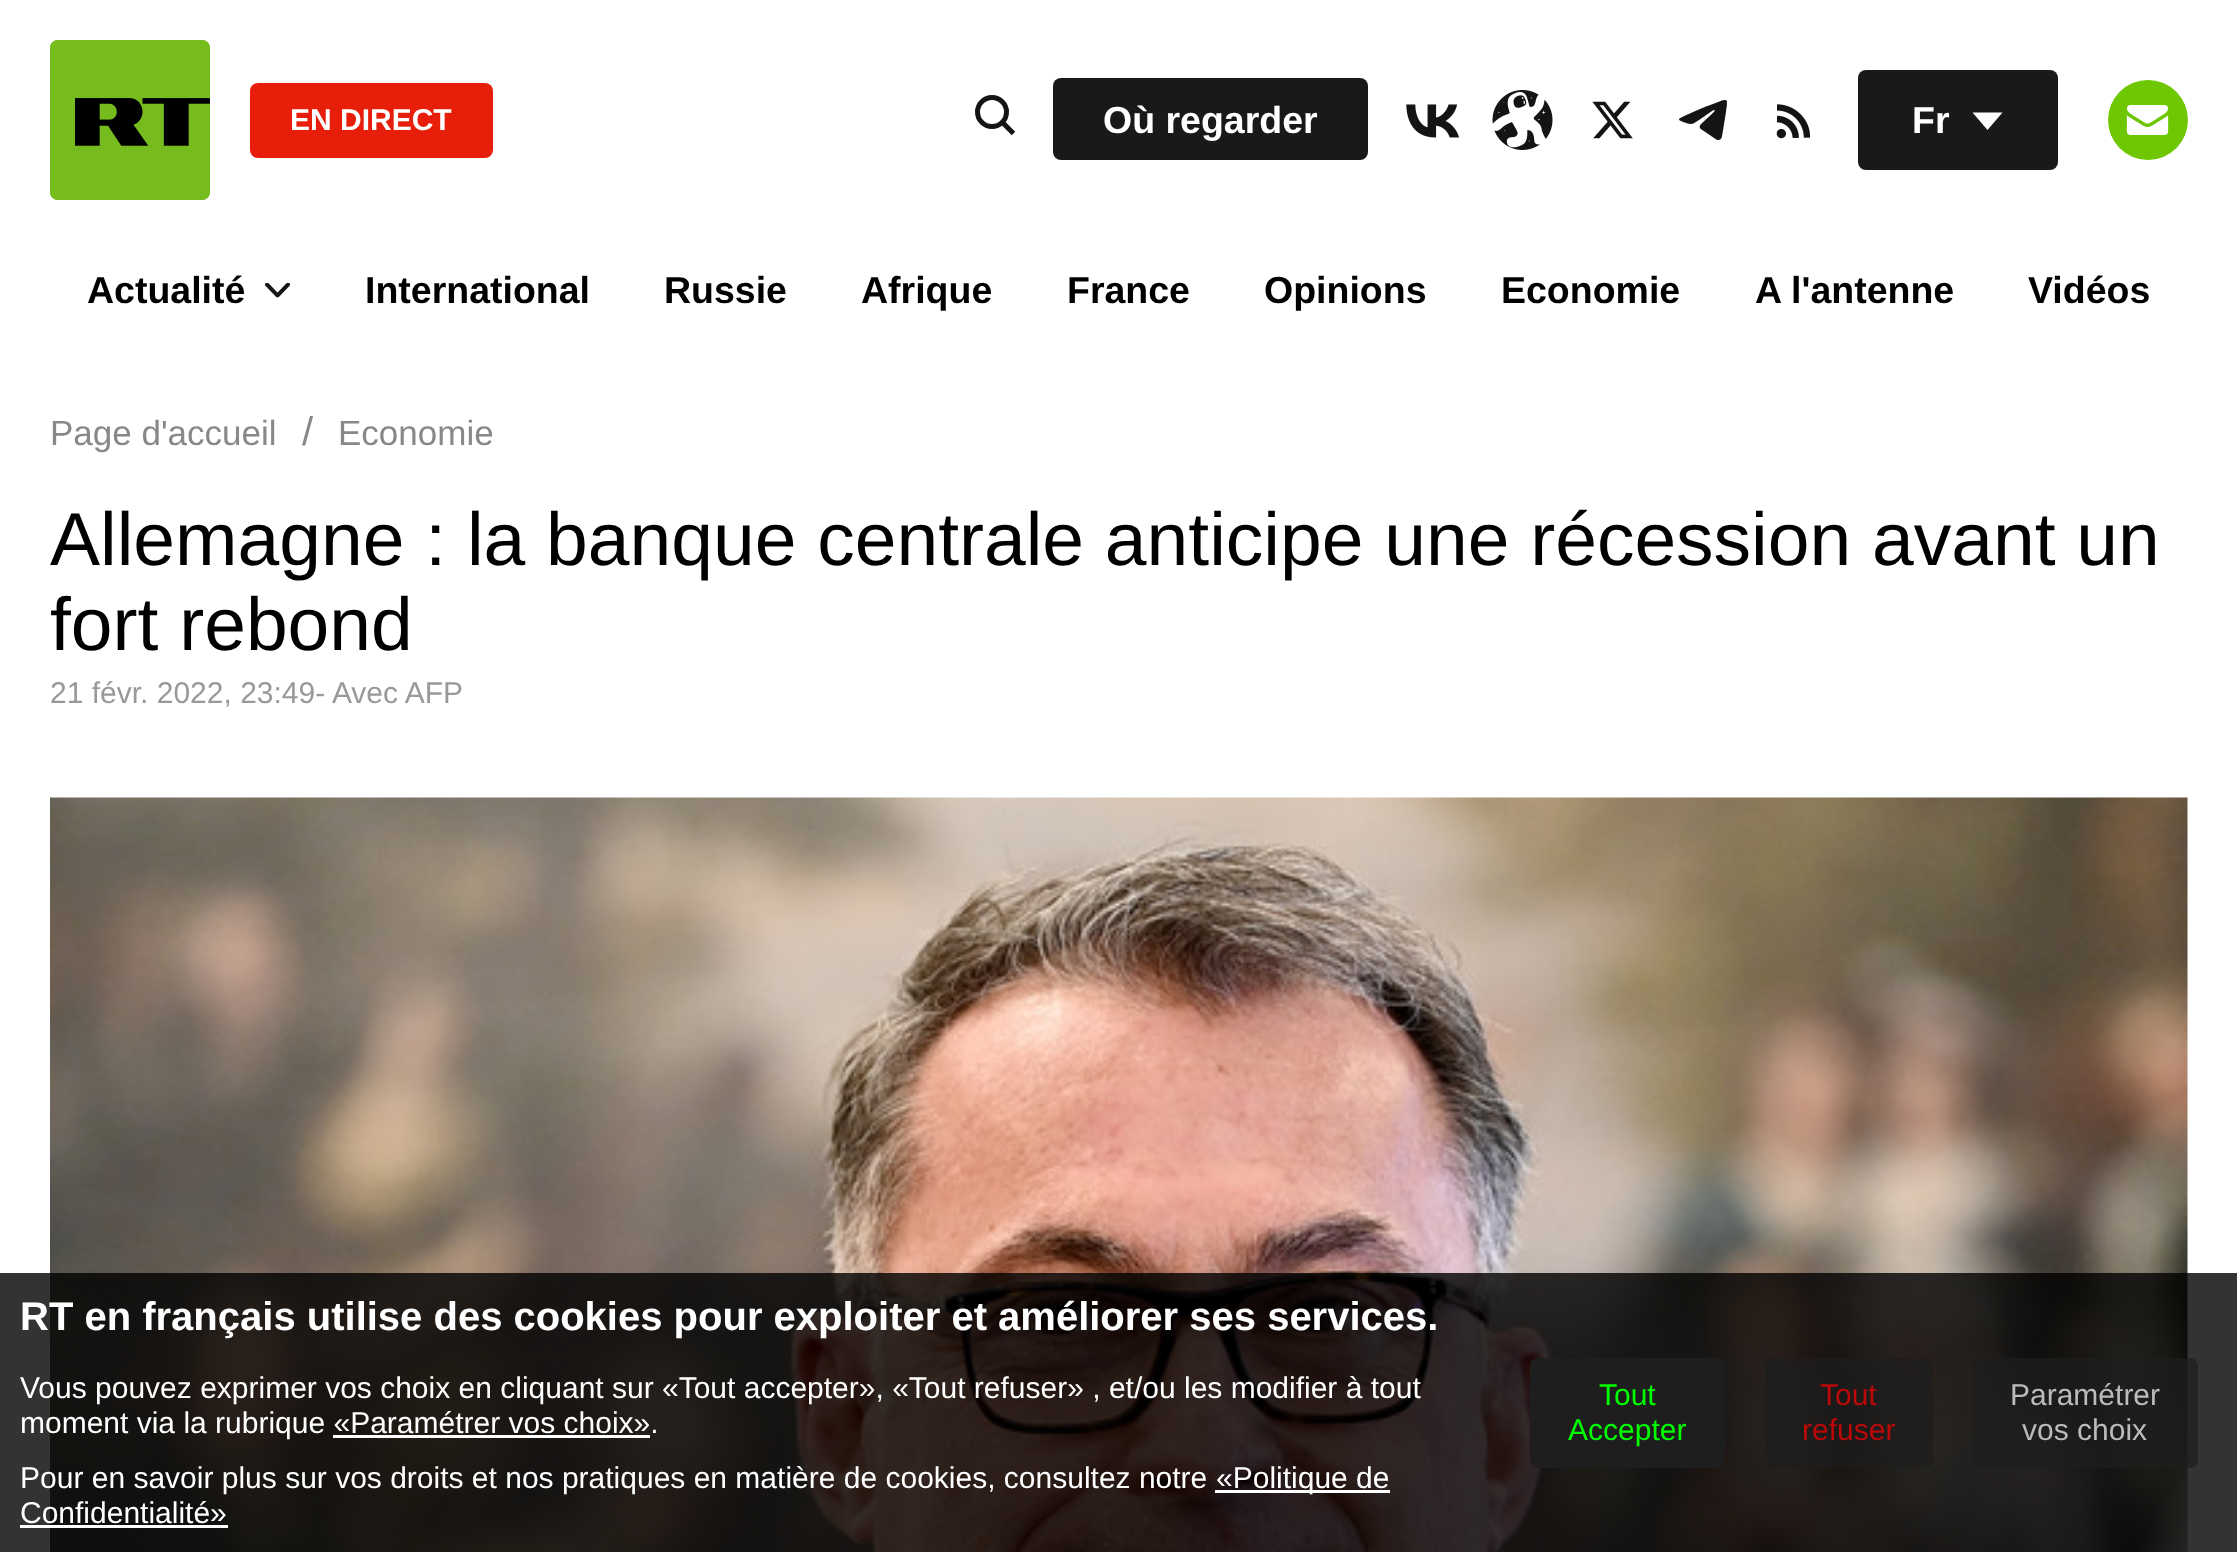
<!DOCTYPE html>
<meta charset="utf-8">
<style>body { margin: 0 } canvas { display: block }</style>
<canvas id="canvas" width="2237" height="1552"></canvas>
<img id="img1" src="images/1.png" hidden>
<img id="img2" src="images/2.png" hidden>
<img id="img3" src="images/3.png" hidden>
<img id="img4" src="images/4.png" hidden>
<img id="img5" src="images/5.png" hidden>
<img id="img6" src="images/6.png" hidden>
<img id="img7" src="images/7.png" hidden>
<img id="img8" src="images/8.png" hidden>
<img id="img9" src="images/9.png" hidden>
<script>
window.onload = function () {
    const canvas = document.getElementById('canvas');
    const context = canvas.getContext('2d');
    context.miterLimit = 4;
    context.fontKerning = 'normal';

    context.fillStyle = 'rgb(255, 255, 255)';
    context.fillRect(0, 0, 2237, 1552);
    context.drawImage(document.getElementById('img1'), 50, 40, 160, 160);
    context.fillStyle = 'rgb(230, 30, 10)';
    context.beginPath();
    context.roundRect(250, 83, 243, 75, 8);
    context.fill();
    context.beginPath();
    context.arc(992, 112, 14.5, 0, 2 * Math.PI);
    context.strokeStyle = 'rgb(20, 20, 20)';
    context.lineWidth = 5;
    context.stroke();
    context.beginPath();
    context.moveTo(1002.5, 122.5);
    context.lineTo(1013.5, 133.5);
    context.stroke();
    context.fillStyle = 'rgb(24, 25, 26)';
    context.beginPath();
    context.roundRect(1053, 78, 315, 82, 8);
    context.fill();
    context.drawImage(document.getElementById('img2'), 1406, 104, 53, 34);
    context.drawImage(document.getElementById('img3'), 1492, 90, 61, 60);
    context.drawImage(document.getElementById('img4'), 1592, 101, 41, 38);
    context.drawImage(document.getElementById('img5'), 1679, 100, 48, 40);
    context.drawImage(document.getElementById('img6'), 1776, 104, 35, 35);
    context.beginPath();
    context.roundRect(1858, 70, 200, 100, 8);
    context.fill();
    context.fillStyle = 'rgb(255, 255, 255)';
    context.beginPath();
    context.moveTo(1972.5, 112.5);
    context.lineTo(2002.5, 112.5);
    context.lineTo(1987.5, 130);
    context.closePath();
    context.fill();
    context.fillStyle = 'rgb(110, 199, 2)';
    context.beginPath();
    context.arc(2148, 120, 40, 0, 2 * Math.PI);
    context.fill();
    context.drawImage(document.getElementById('img7'), 2126, 105, 43, 30);
    context.drawImage(document.getElementById('img8'), 265, 283, 25, 15);
    context.drawImage(document.getElementById('img9'), 50, 797, 2138, 755);
    context.fillStyle = 'rgba(0, 0, 0, 0.8)';
    context.fillRect(0, 1273, 2237, 279);
    context.fillStyle = 'rgb(255, 255, 255)';
    context.fillRect(333, 1435, 317, 3);
    context.fillRect(1215, 1490, 175, 3);
    context.fillRect(20, 1525, 208, 3);
    context.fillStyle = 'rgb(30, 30, 30)';
    context.beginPath();
    context.roundRect(1530, 1358, 195, 110, 8);
    context.fill();
    context.fillStyle = 'rgba(30, 30, 30, 0.7)';
    context.beginPath();
    context.roundRect(1765, 1358, 168, 110, 8);
    context.fill();
    context.beginPath();
    context.roundRect(1973, 1358, 225, 110, 8);
    context.fill();
    context.font = 'bold 30px Liberation Sans';
    context.fillStyle = 'rgb(255, 255, 255)';
    context.fillText('EN DIRECT', 290, 130);
    context.font = 'bold 37.5px Liberation Sans';
    context.fillText('Où regarder', 1103, 133);
    context.fillText('Fr', 1912, 133);
    context.fillStyle = 'rgb(0, 0, 0)';
    context.fillText('Actualité', 87, 303);
    context.fillText('International', 365, 303);
    context.fillText('Russie', 664, 303);
    context.fillText('Afrique', 861, 303);
    context.fillText('France', 1067, 303);
    context.fillText('Opinions', 1264, 303);
    context.fillText('Economie', 1501, 303);
    context.fillText('A l\'antenne', 1755, 303);
    context.fillText('Vidéos', 2028, 303);
    context.font = '35px Liberation Sans';
    context.fillStyle = 'rgb(136, 136, 136)';
    context.fillText('Page d\'accueil', 50, 445);
    context.font = '40px Liberation Sans';
    context.fillText('/', 302, 445);
    context.font = '35px Liberation Sans';
    context.fillText('Economie', 338, 445);
    context.font = '75px Liberation Sans';
    context.fillStyle = 'rgb(0, 0, 0)';
    context.fillText('Allemagne : la banque centrale anticipe une récession avant un', 50, 565);
    context.fillText('fort rebond', 50, 650);
    context.font = '30px Liberation Sans';
    context.fillStyle = 'rgb(153, 153, 153)';
    context.fillText('21 févr. 2022, 23:49- Avec AFP', 50, 703);
    context.font = 'bold 40px Liberation Sans';
    context.fillStyle = 'rgb(255, 255, 255)';
    context.fillText('RT en français utilise des cookies pour exploiter et améliorer ses services.', 20, 1330);
    context.font = '30px Liberation Sans';
    context.fillText('Vous pouvez exprimer vos choix en cliquant sur «Tout accepter», «Tout refuser» , et/ou les modifier à tout', 20, 1398);
    context.fillText('moment via la rubrique «Paramétrer vos choix».', 20, 1433);
    context.fillText('Pour en savoir plus sur vos droits et nos pratiques en matière de cookies, consultez notre', 20, 1488);
    context.fillText('«Politique de', 1216, 1488);
    context.fillText('Confidentialité»', 20, 1523);
    context.fillStyle = 'rgb(0, 255, 0)';
    context.fillText('Tout', 1599, 1405);
    context.fillText('Accepter', 1568, 1440);
    context.fillStyle = 'rgb(187, 8, 8)';
    context.fillText('Tout', 1820, 1405);
    context.fillText('refuser', 1802, 1440);
    context.fillStyle = 'rgb(187, 187, 187)';
    context.fillText('Paramétrer', 2010, 1405);
    context.fillText('vos choix', 2022, 1440);
};
</script>
